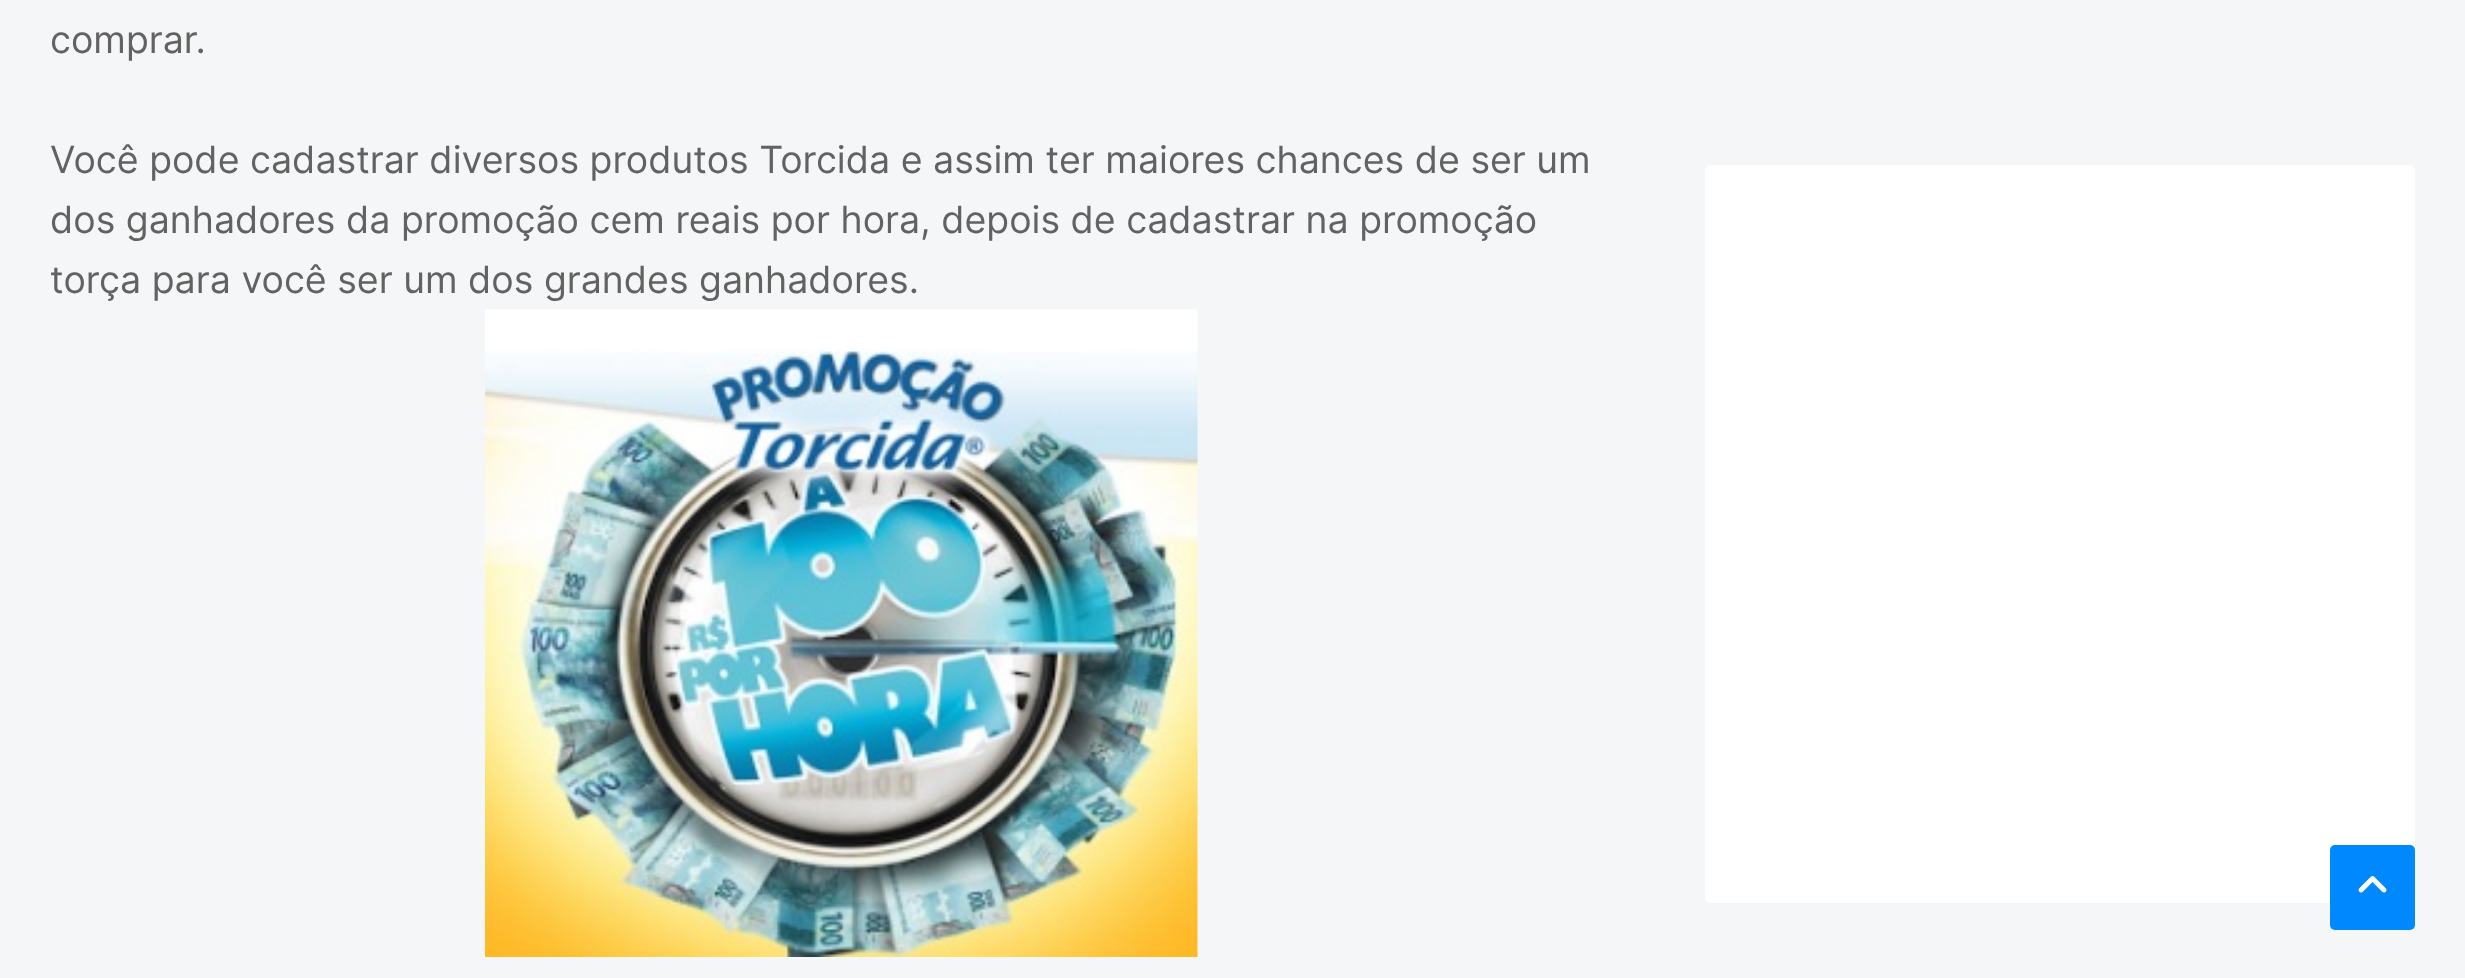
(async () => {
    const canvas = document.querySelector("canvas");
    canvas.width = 2465;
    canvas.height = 978;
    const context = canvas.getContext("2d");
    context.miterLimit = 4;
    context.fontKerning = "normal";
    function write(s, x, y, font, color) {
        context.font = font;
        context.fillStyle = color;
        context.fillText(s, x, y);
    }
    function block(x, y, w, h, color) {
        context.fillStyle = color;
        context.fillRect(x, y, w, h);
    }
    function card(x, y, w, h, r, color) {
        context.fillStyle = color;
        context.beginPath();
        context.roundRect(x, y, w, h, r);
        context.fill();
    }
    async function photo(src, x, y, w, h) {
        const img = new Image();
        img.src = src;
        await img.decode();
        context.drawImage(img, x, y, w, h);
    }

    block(0, 0, 2465, 978, "rgb(245, 246, 247)");
    write("comprar.", 50, 53, "37.5px Inter", "rgb(98, 98, 98)");
    write("Você pode cadastrar diversos produtos Torcida e assim ter maiores chances de ser um", 50, 173, "37.5px Inter", "rgb(98, 98, 98)");
    write("dos ganhadores da promoção cem reais por hora, depois de cadastrar na promoção", 50, 233, "37.5px Inter", "rgb(98, 98, 98)");
    write("torça para você ser um dos grandes ganhadores.", 50, 293, "37.5px Inter", "rgb(98, 98, 98)");
    await photo("media/1.png", 485, 309, 713, 648);
    card(1705, 165, 710, 738, 5, "rgb(255, 255, 255)");
    card(2330, 845, 85, 85, 5, "rgb(0, 136, 255)");
    await photo("media/2.png", 2358, 876, 29, 17);
})();
